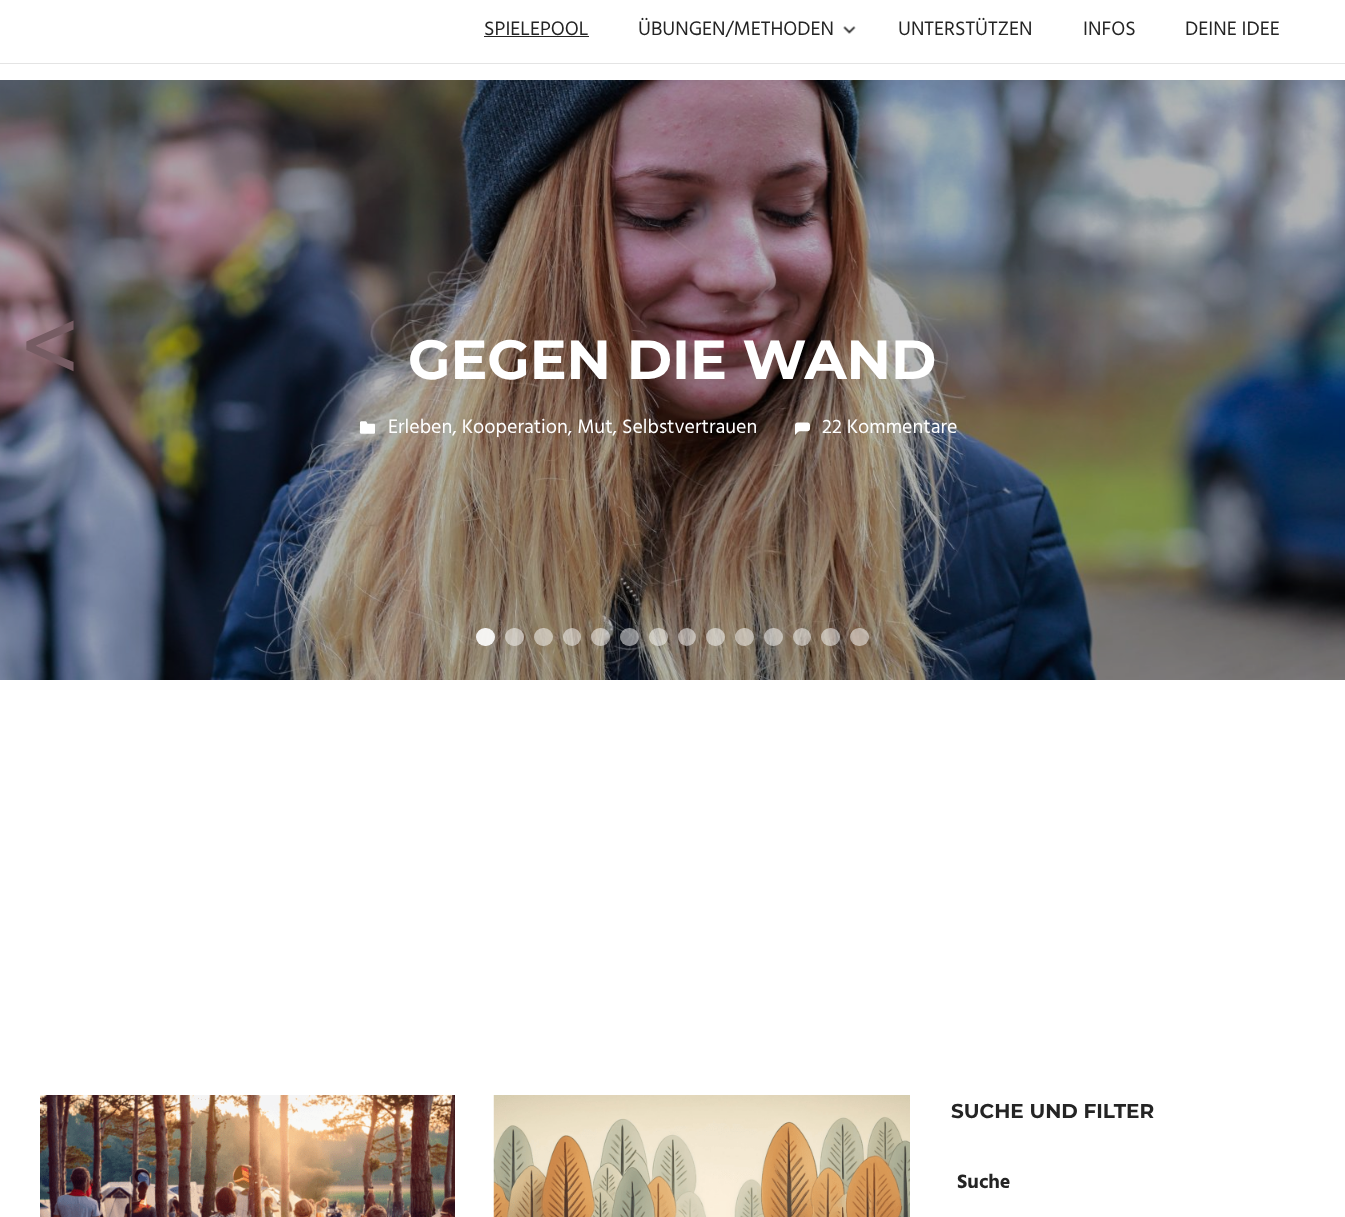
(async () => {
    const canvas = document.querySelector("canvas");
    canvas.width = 1345;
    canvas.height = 1217;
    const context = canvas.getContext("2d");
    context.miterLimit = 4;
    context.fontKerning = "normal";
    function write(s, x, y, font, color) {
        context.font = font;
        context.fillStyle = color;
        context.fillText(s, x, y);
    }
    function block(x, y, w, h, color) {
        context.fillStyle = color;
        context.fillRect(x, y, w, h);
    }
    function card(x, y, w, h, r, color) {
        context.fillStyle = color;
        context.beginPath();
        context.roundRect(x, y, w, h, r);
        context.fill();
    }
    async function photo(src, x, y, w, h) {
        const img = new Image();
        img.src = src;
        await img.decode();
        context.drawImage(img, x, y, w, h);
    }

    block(0, 0, 1345, 1217, "rgb(255, 255, 255)");
    block(0, 63, 1345, 1, "rgb(228, 228, 228)");
    write("SPIELEPOOL", 484, 35, "20px Hind", "rgb(36, 36, 36)");
    block(484, 36, 105, 1, "rgb(36, 36, 36)");
    write("ÜBUNGEN/METHODEN", 638, 35, "20px Hind", "rgb(36, 36, 36)");
    await photo("media/1.png", 843, 26, 13, 8);
    write("UNTERSTÜTZEN", 898, 35, "20px Hind", "rgb(36, 36, 36)");
    write("INFOS", 1083, 35, "20px Hind", "rgb(36, 36, 36)");
    write("DEINE IDEE", 1185, 35, "20px Hind", "rgb(36, 36, 36)");
    await photo("media/2.png", 0, 80, 1345, 600);
    write("<", 20, 384, "112px Hind", "rgb(118, 92, 99)");
    card(476, 628, 19, 18, 9, "rgba(255, 255, 255, 0.9)");
    card(505, 628, 19, 18, 9, "rgba(255, 255, 255, 0.5)");
    card(534, 628, 19, 18, 9, "rgba(255, 255, 255, 0.5)");
    context.beginPath();
    context.arc(572, 637, 9, 0, Math.PI * 2);
    context.fill();
    card(591, 628, 19, 18, 9, "rgba(255, 255, 255, 0.5)");
    card(620, 628, 19, 18, 9, "rgba(255, 255, 255, 0.5)");
    card(649, 628, 19, 18, 9, "rgba(255, 255, 255, 0.5)");
    context.beginPath();
    context.arc(687, 637, 9, 0, Math.PI * 2);
    context.fill();
    card(706, 628, 19, 18, 9, "rgba(255, 255, 255, 0.5)");
    card(735, 628, 19, 18, 9, "rgba(255, 255, 255, 0.5)");
    card(764, 628, 19, 18, 9, "rgba(255, 255, 255, 0.5)");
    context.beginPath();
    context.arc(802, 637, 9, 0, Math.PI * 2);
    context.fill();
    card(821, 628, 19, 18, 9, "rgba(255, 255, 255, 0.5)");
    card(850, 628, 19, 18, 9, "rgba(255, 255, 255, 0.5)");
    write("GEGEN DIE WAND", 408, 379, "bold 55px Montserrat", "rgb(255, 255, 255)");
    await photo("media/3.png", 360, 421, 15, 13);
    write("Erleben, Kooperation, Mut, Selbstvertrauen", 388, 433, "20px Hind", "rgb(255, 255, 255)");
    await photo("media/4.png", 795, 422, 15, 13);
    write("22 Kommentare", 822, 433, "20px Hind", "rgb(255, 255, 255)");
    await photo("media/5.png", 40, 1095, 415, 122);
    await photo("media/6.png", 493, 1095, 417, 122);
    write("SUCHE UND FILTER", 951, 1118, "bold 20px Montserrat", "rgb(36, 36, 36)");
    write("Suche", 957, 1188, "bold 20px Hind", "rgb(36, 36, 36)");
})();
